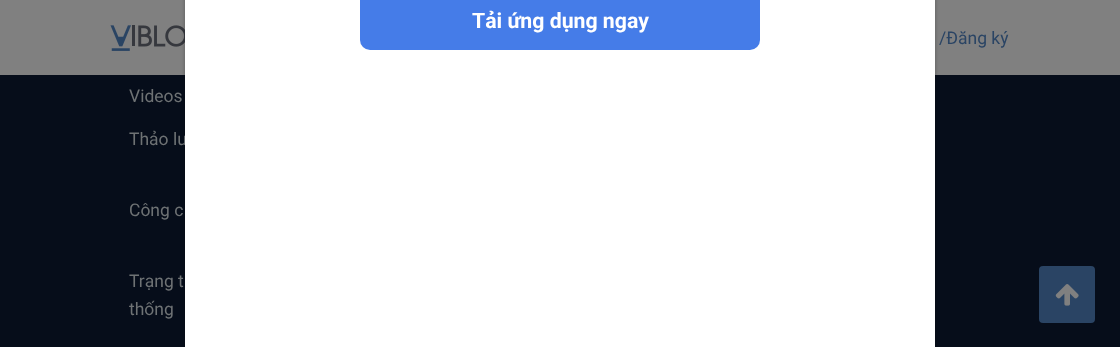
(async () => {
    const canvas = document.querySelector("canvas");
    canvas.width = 1120;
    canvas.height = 347;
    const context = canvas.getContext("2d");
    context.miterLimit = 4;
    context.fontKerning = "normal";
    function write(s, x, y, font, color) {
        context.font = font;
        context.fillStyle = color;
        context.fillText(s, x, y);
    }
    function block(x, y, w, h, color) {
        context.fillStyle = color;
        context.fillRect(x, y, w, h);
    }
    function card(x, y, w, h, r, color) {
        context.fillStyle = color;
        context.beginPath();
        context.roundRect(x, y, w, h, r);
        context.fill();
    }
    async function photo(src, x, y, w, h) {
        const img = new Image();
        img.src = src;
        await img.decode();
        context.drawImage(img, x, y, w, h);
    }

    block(0, 0, 1120, 347, "rgb(6, 13, 26)");
    block(0, 0, 1120, 75, "rgb(128, 128, 128)");
    await photo("media/1.png", 110, 25, 75, 26);
    context.fillStyle = "rgba(0, 0, 0, 0.3)";
    context.filter = "blur(2px)";
    context.beginPath();
    context.roundRect(185, -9, 750, 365, 2.5);
    context.fill();
    context.filter = "none";
    write("Thảo lu", 129, 145, "17.5px Roboto", "rgb(110, 114, 116)");
    block(185, 0, 750, 347, "rgb(255, 255, 255)");
    card(360, -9, 400, 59, 10, "rgb(69, 124, 232)");
    write("Tải ứng dụng ngay", 472, 28, "bold 21.25px Roboto", "rgb(255, 255, 255)");
    write("/Đăng ký", 939, 44, "17.5px Roboto", "rgb(42, 68, 100)");
    write("Videos", 129, 102, "17.5px Roboto", "rgb(110, 114, 116)");
    write("Công c", 129, 216, "17.5px Roboto", "rgb(110, 114, 116)");
    write("Trạng t", 129, 287, "17.5px Roboto", "rgb(110, 114, 116)");
    write("thống", 129, 315, "17.5px Roboto", "rgb(110, 114, 116)");
    card(1039, 266, 56, 57, 4, "rgb(42, 68, 100)");
    await photo("media/2.png", 1055, 284, 24, 22);
})();
